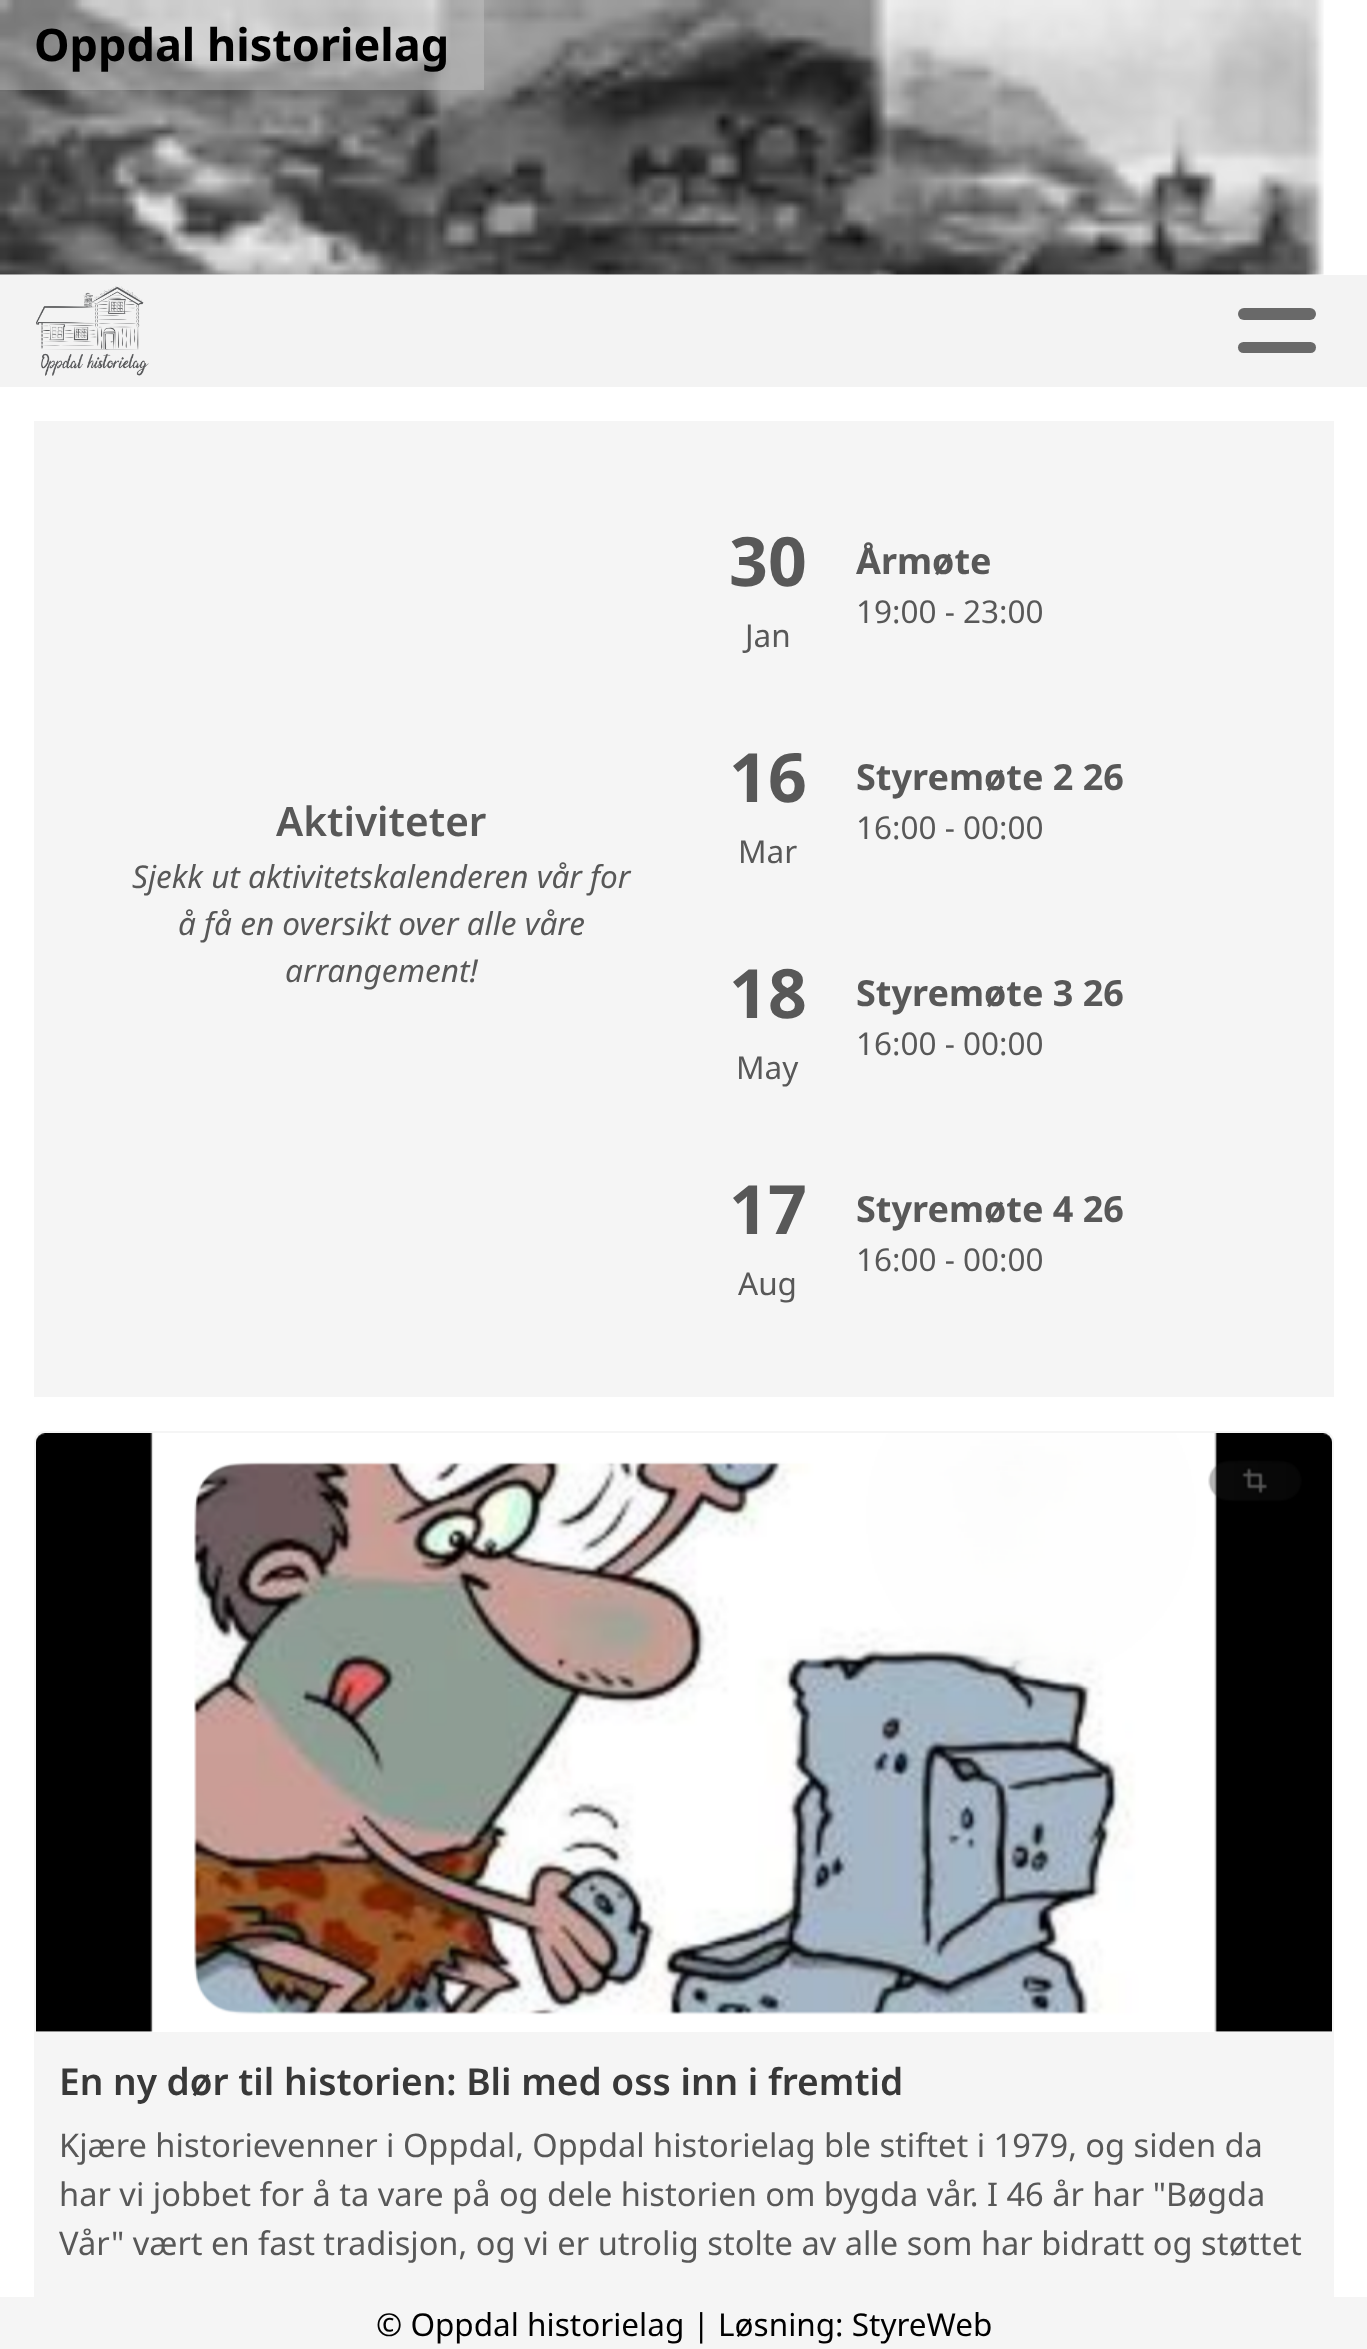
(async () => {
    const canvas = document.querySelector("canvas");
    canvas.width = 1367;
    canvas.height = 2349;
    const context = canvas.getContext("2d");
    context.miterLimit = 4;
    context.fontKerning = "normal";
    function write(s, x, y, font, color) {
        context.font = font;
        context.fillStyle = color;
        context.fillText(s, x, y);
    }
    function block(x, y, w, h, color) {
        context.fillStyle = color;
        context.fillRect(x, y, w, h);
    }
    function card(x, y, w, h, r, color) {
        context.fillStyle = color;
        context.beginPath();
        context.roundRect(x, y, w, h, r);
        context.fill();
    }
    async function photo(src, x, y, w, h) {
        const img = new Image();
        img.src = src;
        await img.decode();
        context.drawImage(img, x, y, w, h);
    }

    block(0, 0, 1367, 2349, "rgb(255, 255, 255)");
    await photo("media/1.png", 0, 0, 1324, 275);
    block(0, 0, 484, 90, "rgba(191, 191, 191, 0.5)");
    write("Oppdal historielag", 34, 61, "bold 45px Noto Sans", "rgb(0, 0, 0)");
    block(0, 275, 1367, 112, "rgb(243, 243, 243)");
    await photo("media/2.png", 36, 286, 113, 90);
    card(1238, 308, 78, 12, 6, "rgb(105, 105, 105)");
    card(1238, 342, 78, 11, 5.5, "rgb(105, 105, 105)");
    block(34, 421, 1300, 976, "rgb(245, 245, 245)");
    write("Aktiviteter", 276, 836, "600 40.5px Noto Sans", "rgb(88, 88, 88)");
    write("Sjekk ut aktivitetskalenderen vår for", 132, 888, "italic 31.5px Noto Sans", "rgb(88, 88, 88)");
    write("å få en oversikt over alle våre", 178, 935, "italic 31.5px Noto Sans", "rgb(88, 88, 88)");
    write("arrangement!", 285, 982, "italic 31.5px Noto Sans", "rgb(88, 88, 88)");
    write("30", 729, 586, "bold 68px Noto Sans", "rgb(88, 88, 88)");
    write("Jan", 745, 647, "31.5px Noto Sans", "rgb(88, 88, 88)");
    write("Årmøte", 856, 574, "bold 36px Noto Sans", "rgb(88, 88, 88)");
    write("19:00 - 23:00", 856, 623, "31.5px Noto Sans", "rgb(88, 88, 88)");
    write("16", 729, 802, "bold 68px Noto Sans", "rgb(88, 88, 88)");
    write("Mar", 738, 863, "31.5px Noto Sans", "rgb(88, 88, 88)");
    write("Styremøte 2 26", 856, 790, "bold 36px Noto Sans", "rgb(88, 88, 88)");
    write("16:00 - 00:00", 856, 839, "31.5px Noto Sans", "rgb(88, 88, 88)");
    write("18", 729, 1018, "bold 68px Noto Sans", "rgb(88, 88, 88)");
    write("May", 736, 1079, "31.5px Noto Sans", "rgb(88, 88, 88)");
    write("Styremøte 3 26", 856, 1006, "bold 36px Noto Sans", "rgb(88, 88, 88)");
    write("16:00 - 00:00", 856, 1055, "31.5px Noto Sans", "rgb(88, 88, 88)");
    write("17", 729, 1234, "bold 68px Noto Sans", "rgb(88, 88, 88)");
    write("Aug", 738, 1295, "31.5px Noto Sans", "rgb(88, 88, 88)");
    write("Styremøte 4 26", 856, 1222, "bold 36px Noto Sans", "rgb(88, 88, 88)");
    write("16:00 - 00:00", 856, 1271, "31.5px Noto Sans", "rgb(88, 88, 88)");
    context.beginPath();
    context.roundRect(35, 1432, 1298, 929, 10);
    context.strokeStyle = "rgb(245, 245, 245)";
    context.lineWidth = 2;
    context.stroke();
    await photo("media/3.png", 36, 1433, 1296, 599);
    block(36, 2032, 1296, 265, "rgb(245, 245, 245)");
    write("En ny dør til historien: Bli med oss inn i fremtid", 59, 2095, "600 37.1px Noto Sans", "rgb(56, 56, 56)");
    write("Kjære historievenner i Oppdal, Oppdal historielag ble stiftet i 1979, og siden da", 59, 2157, "32.6px Noto Sans", "rgb(88, 88, 88)");
    write("har vi jobbet for å ta vare på og dele historien om bygda vår. I 46 år har \"Bøgda", 59, 2206, "32.6px Noto Sans", "rgb(88, 88, 88)");
    write("Vår\" vært en fast tradisjon, og vi er utrolig stolte av alle som har bidratt og støttet", 59, 2255, "32.6px Noto Sans", "rgb(88, 88, 88)");
    block(0, 2297, 1367, 52, "rgb(245, 245, 245)");
    write("© Oppdal historielag | Løsning: StyreWeb", 376, 2336, "31.5px Noto Sans", "rgb(0, 0, 0)");
})();
